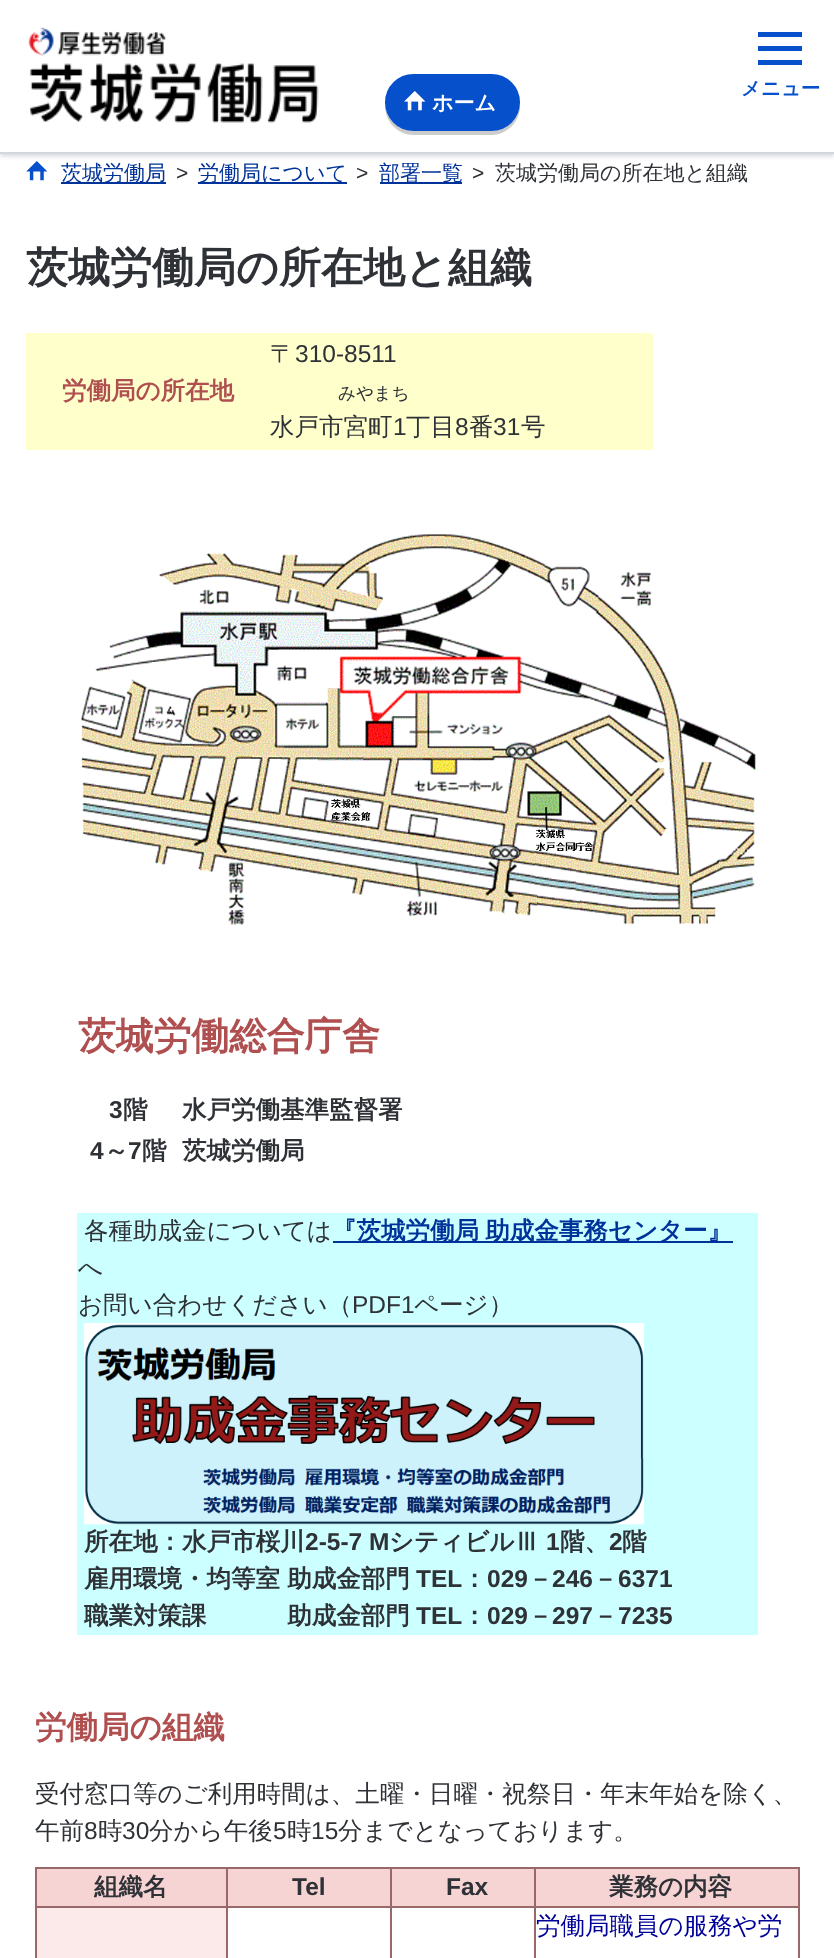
(async () => {
    const canvas = document.querySelector("canvas");
    canvas.width = 834;
    canvas.height = 1958;
    const context = canvas.getContext("2d");
    context.miterLimit = 4;
    context.fontKerning = "normal";
    function write(s, x, y, font, color) {
        context.font = font;
        context.fillStyle = color;
        context.fillText(s, x, y);
    }
    function block(x, y, w, h, color) {
        context.fillStyle = color;
        context.fillRect(x, y, w, h);
    }
    async function photo(src, x, y, w, h) {
        const img = new Image();
        img.src = src;
        await img.decode();
        context.drawImage(img, x, y, w, h);
    }

    block(0, 0, 834, 1958, "rgb(255, 255, 255)");
    await photo("media/3.png", 26, 161, 22, 20);
    context.save();
    context.beginPath();
    context.rect(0, 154, 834, 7);
    context.clip();
    context.fillStyle = "rgb(211, 214, 221)";
    context.filter = "blur(2.5px)";
    context.beginPath();
    context.rect(0, 2, 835, 154);
    context.fill();
    context.filter = "none";
    context.restore();
    block(0, 152, 834, 2, "rgb(211, 214, 221)");
    await photo("media/1.png", 28, 27, 291, 96);
    block(758, 46, 44, 5, "rgb(6, 80, 203)");
    block(758, 32, 44, 5, "rgb(6, 80, 203)");
    block(758, 60, 44, 5, "rgb(6, 80, 203)");
    write("メニュー", 741, 95, "bold 19.5px WenQuanYi Zen Hei", "rgb(6, 80, 203)");
    context.fillStyle = "rgb(204, 204, 204)";
    context.beginPath();
    context.moveTo(385, 104);
    context.lineTo(385, 106);
    context.bezierCurveTo(385, 122, 398, 135, 414, 135);
    context.lineTo(491, 135);
    context.bezierCurveTo(507, 135, 520, 122, 520, 106);
    context.lineTo(520, 102);
    context.bezierCurveTo(520, 118, 507, 131, 491, 131);
    context.lineTo(414, 131);
    context.bezierCurveTo(399, 131, 386, 119, 385, 104);
    context.closePath();
    context.fill();
    context.fillStyle = "rgb(6, 80, 203)";
    context.beginPath();
    context.roundRect(386, 75, 133, 55, 27.5);
    context.fill();
    context.strokeStyle = "rgb(6, 80, 203)";
    context.lineWidth = 2;
    context.stroke();
    await photo("media/2.png", 404, 91, 22, 20);
    write("ホーム", 432, 110, "bold 21px WenQuanYi Zen Hei", "rgb(255, 255, 255)");
    block(61, 182, 105, 2, "rgb(0, 51, 153)");
    write("茨城労働局", 61, 180, "500 21px WenQuanYi Zen Hei", "rgb(0, 51, 153)");
    write(">", 176, 180, "21px Liberation Sans", "rgb(46, 49, 54)");
    block(198, 182, 149, 2, "rgb(0, 51, 153)");
    write("労働局について", 198, 180, "500 21px WenQuanYi Zen Hei", "rgb(0, 51, 153)");
    write(">", 356, 180, "21px Liberation Sans", "rgb(46, 49, 54)");
    block(380, 182, 82, 2, "rgb(0, 51, 153)");
    write("部署一覧", 379, 180, "500 21px WenQuanYi Zen Hei", "rgb(0, 51, 153)");
    write(">", 472, 180, "21px Liberation Sans", "rgb(46, 49, 54)");
    write("茨城労働局の所在地と組織", 495, 180, "500 21px WenQuanYi Zen Hei", "rgb(46, 49, 54)");
    write("茨城労働局の所在地と組織", 26, 282, "bold 42px WenQuanYi Zen Hei", "rgb(46, 49, 54)");
    block(26, 333, 627, 117, "rgb(255, 255, 204)");
    write("労働局の所在地", 62, 399, "bold 24.5px WenQuanYi Zen Hei", "rgb(176, 79, 79)");
    write("〒", 270, 362, "500 24.5px WenQuanYi Zen Hei", "rgb(46, 49, 54)");
    write("310-8511", 295, 362, "24.5px Liberation Sans", "rgb(46, 49, 54)");
    write("みやまち", 338, 399, "500 17.5px WenQuanYi Zen Hei", "rgb(46, 49, 54)");
    write("水戸市宮町", 270, 435, "500 24.5px WenQuanYi Zen Hei", "rgb(46, 49, 54)");
    write("1", 393, 435, "24.5px Liberation Sans", "rgb(46, 49, 54)");
    write("丁目", 406, 435, "500 24.5px WenQuanYi Zen Hei", "rgb(46, 49, 54)");
    write("8", 455, 435, "24.5px Liberation Sans", "rgb(46, 49, 54)");
    write("番", 469, 435, "500 24.5px WenQuanYi Zen Hei", "rgb(46, 49, 54)");
    write("31", 493, 435, "24.5px Liberation Sans", "rgb(46, 49, 54)");
    write("号", 521, 435, "500 24.5px WenQuanYi Zen Hei", "rgb(46, 49, 54)");
    await photo("media/4.png", 81, 534, 675, 391);
    write("茨城労働総合庁舎", 78, 1049, "bold 37.75px WenQuanYi Zen Hei", "rgb(176, 79, 79)");
    write("3", 109, 1118, "bold 24.5px Liberation Sans", "rgb(46, 49, 54)");
    write("階", 123, 1118, "bold 24.5px WenQuanYi Zen Hei", "rgb(46, 49, 54)");
    write("水戸労働基準監督署", 182, 1118, "bold 24.5px WenQuanYi Zen Hei", "rgb(46, 49, 54)");
    write("4", 90, 1159, "bold 24.5px Liberation Sans", "rgb(46, 49, 54)");
    write("～", 104, 1159, "bold 24.5px WenQuanYi Zen Hei", "rgb(46, 49, 54)");
    write("7", 128, 1159, "bold 24.5px Liberation Sans", "rgb(46, 49, 54)");
    write("階", 142, 1159, "bold 24.5px WenQuanYi Zen Hei", "rgb(46, 49, 54)");
    write("茨城労働局", 182, 1159, "bold 24.5px WenQuanYi Zen Hei", "rgb(46, 49, 54)");
    block(77, 1213, 681, 422, "rgb(204, 255, 255)");
    write("各種助成金については", 84, 1239, "500 24.5px WenQuanYi Zen Hei", "rgb(46, 49, 54)");
    block(333, 1241, 400, 2, "rgb(0, 51, 153)");
    context.wordSpacing = "-1px";
    write("『茨城労働局 助成金事務センター』", 332, 1239, "bold 24.5px WenQuanYi Zen Hei", "rgb(0, 51, 153)");
    context.wordSpacing = "0px";
    write("へ", 78, 1276, "500 24.5px WenQuanYi Zen Hei", "rgb(46, 49, 54)");
    write("お問い合わせください（", 78, 1313, "500 24.5px WenQuanYi Zen Hei", "rgb(46, 49, 54)");
    write("PDF1", 352, 1313, "24.5px Liberation Sans", "rgb(46, 49, 54)");
    write("ページ）", 414, 1313, "500 24.5px WenQuanYi Zen Hei", "rgb(46, 49, 54)");
    await photo("media/5.png", 84, 1323, 560, 202);
    write("所在地：水戸市桜川", 84, 1550, "bold 24.5px WenQuanYi Zen Hei", "rgb(46, 49, 54)");
    write("2-5-7 M", 305, 1550, "bold 24.5px Liberation Sans", "rgb(46, 49, 54)");
    write("シティビルⅢ", 389, 1550, "bold 24.5px WenQuanYi Zen Hei", "rgb(46, 49, 54)");
    write("1", 546, 1550, "bold 24.5px Liberation Sans", "rgb(46, 49, 54)");
    write("階、", 560, 1550, "bold 24.5px WenQuanYi Zen Hei", "rgb(46, 49, 54)");
    write("2", 609, 1550, "bold 24.5px Liberation Sans", "rgb(46, 49, 54)");
    write("階", 622, 1550, "bold 24.5px WenQuanYi Zen Hei", "rgb(46, 49, 54)");
    write("雇用環境・均等室 助成金部門", 84, 1587, "bold 24.5px WenQuanYi Zen Hei", "rgb(46, 49, 54)");
    write("TEL", 416, 1587, "bold 24.5px Liberation Sans", "rgb(46, 49, 54)");
    write("：", 462, 1587, "bold 24.5px WenQuanYi Zen Hei", "rgb(46, 49, 54)");
    write("029", 487, 1587, "bold 24.5px Liberation Sans", "rgb(46, 49, 54)");
    write("－", 528, 1587, "bold 24.5px WenQuanYi Zen Hei", "rgb(46, 49, 54)");
    write("246", 552, 1587, "bold 24.5px Liberation Sans", "rgb(46, 49, 54)");
    write("－", 593, 1587, "bold 24.5px WenQuanYi Zen Hei", "rgb(46, 49, 54)");
    write("6371", 618, 1587, "bold 24.5px Liberation Sans", "rgb(46, 49, 54)");
    write("職業対策課 　　　助成金部門", 84, 1624, "bold 24.5px WenQuanYi Zen Hei", "rgb(46, 49, 54)");
    write("TEL", 416, 1624, "bold 24.5px Liberation Sans", "rgb(46, 49, 54)");
    write("：", 462, 1624, "bold 24.5px WenQuanYi Zen Hei", "rgb(46, 49, 54)");
    write("029", 487, 1624, "bold 24.5px Liberation Sans", "rgb(46, 49, 54)");
    write("－", 528, 1624, "bold 24.5px WenQuanYi Zen Hei", "rgb(46, 49, 54)");
    write("297", 552, 1624, "bold 24.5px Liberation Sans", "rgb(46, 49, 54)");
    write("－", 593, 1624, "bold 24.5px WenQuanYi Zen Hei", "rgb(46, 49, 54)");
    write("7235", 618, 1624, "bold 24.5px Liberation Sans", "rgb(46, 49, 54)");
    write("労働局の組織", 35, 1738, "bold 31.5px WenQuanYi Zen Hei", "rgb(176, 79, 79)");
    write("受付窓口等のご利用時間は、土曜・日曜・祝祭日・年末年始を除く、", 35, 1802, "500 24.5px WenQuanYi Zen Hei", "rgb(46, 49, 54)");
    write("午前", 35, 1839, "500 24.5px WenQuanYi Zen Hei", "rgb(46, 49, 54)");
    write("8", 84, 1839, "24.5px Liberation Sans", "rgb(46, 49, 54)");
    write("時", 98, 1839, "500 24.5px WenQuanYi Zen Hei", "rgb(46, 49, 54)");
    write("30", 122, 1839, "24.5px Liberation Sans", "rgb(46, 49, 54)");
    write("分から午後", 149, 1839, "500 24.5px WenQuanYi Zen Hei", "rgb(46, 49, 54)");
    write("5", 273, 1839, "24.5px Liberation Sans", "rgb(46, 49, 54)");
    write("時", 287, 1839, "500 24.5px WenQuanYi Zen Hei", "rgb(46, 49, 54)");
    write("15", 311, 1839, "24.5px Liberation Sans", "rgb(46, 49, 54)");
    write("分までとなっております。", 338, 1839, "500 24.5px WenQuanYi Zen Hei", "rgb(46, 49, 54)");
    block(35, 1867, 765, 91, "rgb(153, 105, 105)");
    block(37, 1869, 189, 37, "rgb(247, 212, 212)");
    write("組織名", 94, 1895, "bold 24.5px WenQuanYi Zen Hei", "rgb(46, 49, 54)");
    block(228, 1869, 162, 37, "rgb(247, 212, 212)");
    write("Tel", 292, 1895, "bold 24.5px Liberation Sans", "rgb(46, 49, 54)");
    block(392, 1869, 142, 37, "rgb(247, 212, 212)");
    write("Fax", 446, 1895, "bold 24.5px Liberation Sans", "rgb(46, 49, 54)");
    block(536, 1869, 262, 37, "rgb(247, 212, 212)");
    write("業務の内容", 609, 1895, "bold 24.5px WenQuanYi Zen Hei", "rgb(46, 49, 54)");
    block(37, 1908, 189, 50, "rgb(252, 234, 234)");
    block(228, 1908, 162, 50, "rgb(255, 255, 255)");
    block(392, 1908, 142, 50, "rgb(255, 255, 255)");
    block(536, 1908, 262, 50, "rgb(255, 255, 255)");
    write("労働局職員の服務や労", 536, 1934, "500 24.5px WenQuanYi Zen Hei", "rgb(0, 0, 153)");
})();
